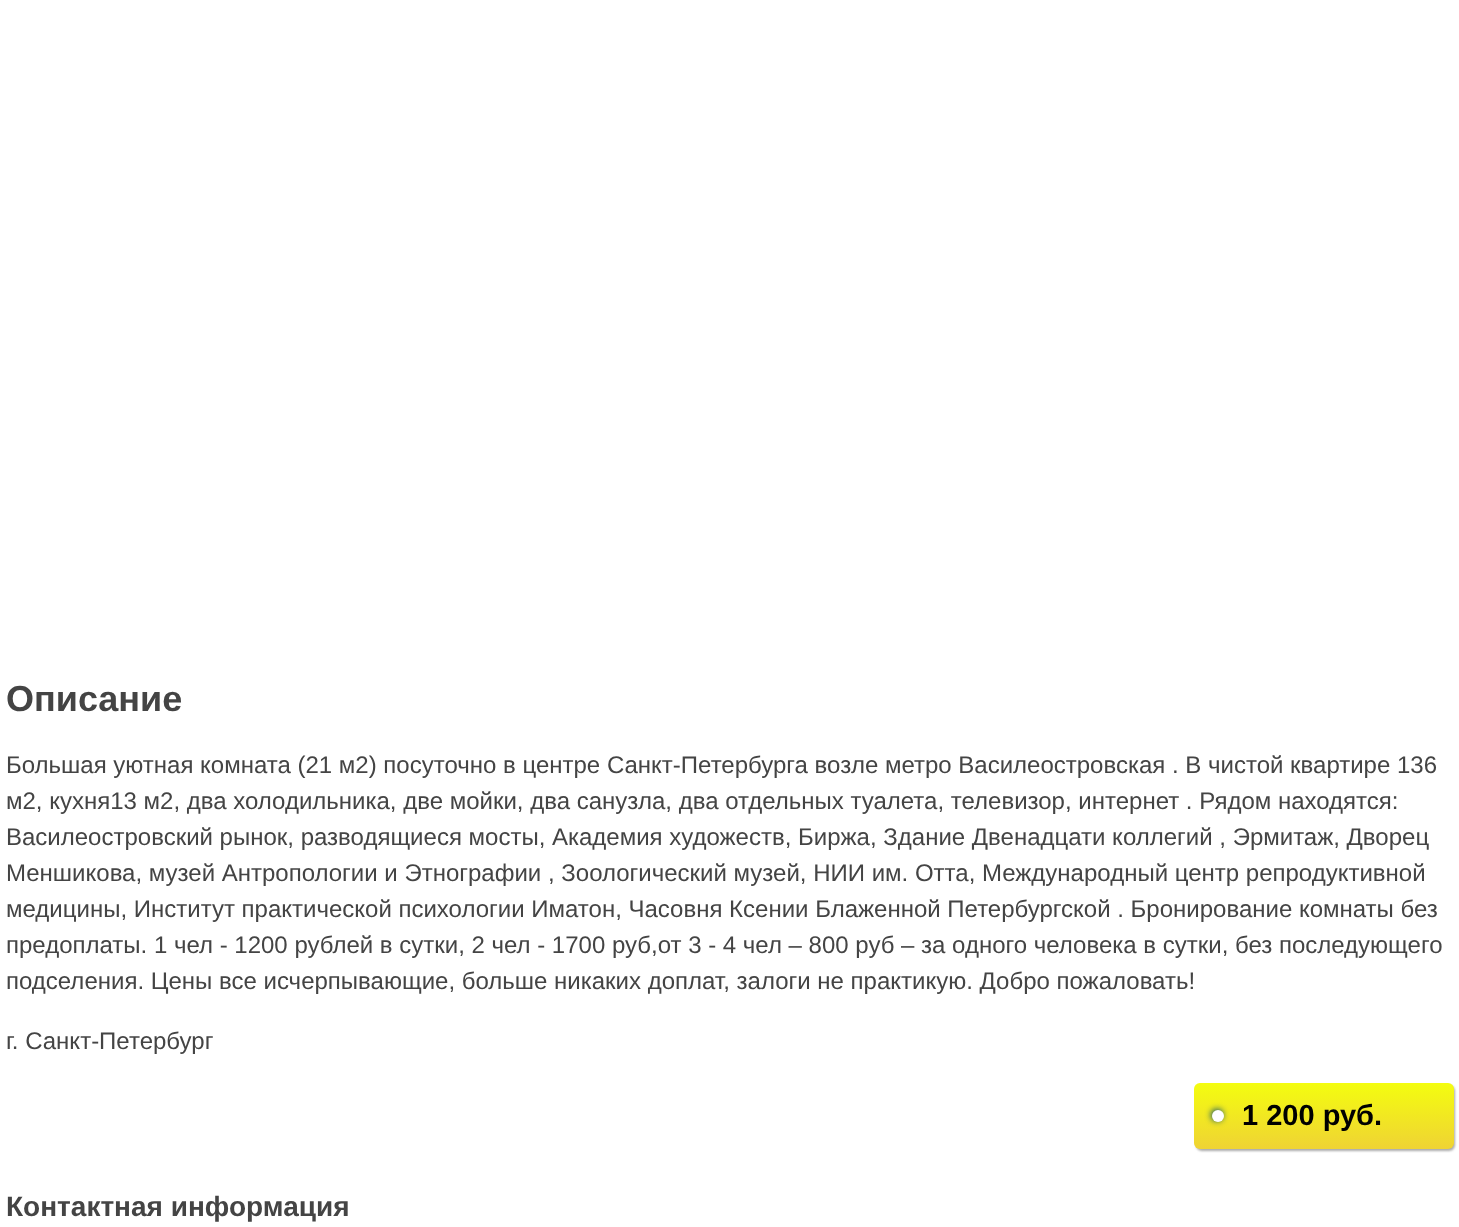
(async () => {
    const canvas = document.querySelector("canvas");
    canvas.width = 1459;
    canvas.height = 1227;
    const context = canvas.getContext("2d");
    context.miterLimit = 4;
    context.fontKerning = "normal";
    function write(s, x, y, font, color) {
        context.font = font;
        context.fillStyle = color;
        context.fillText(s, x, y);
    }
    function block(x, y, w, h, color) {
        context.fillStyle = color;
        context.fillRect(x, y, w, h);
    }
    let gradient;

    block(0, 0, 1459, 1227, "rgb(255, 255, 255)");
    write("Описание", 6, 711, "bold 36px Liberation Sans", "rgb(68, 68, 68)");
    write("Большая уютная комната (21 м2) посуточно в центре Санкт-Петербурга возле метро Василеостровская . В чистой квартире 136", 6, 773, "24px Liberation Sans", "rgb(68, 68, 68)");
    write("м2, кухня13 м2, два холодильника, две мойки, два санузла, два отдельных туалета, телевизор, интернет . Рядом находятся:", 6, 809, "24px Liberation Sans", "rgb(68, 68, 68)");
    write("Василеостровский рынок, разводящиеся мосты, Академия художеств, Биржа, Здание Двенадцати коллегий , Эрмитаж, Дворец", 6, 845, "24px Liberation Sans", "rgb(68, 68, 68)");
    write("Меншикова, музей Антропологии и Этнографии , Зоологический музей, НИИ им. Отта, Международный центр репродуктивной", 6, 881, "24px Liberation Sans", "rgb(68, 68, 68)");
    write("медицины, Институт практической психологии Иматон, Часовня Ксении Блаженной Петербургской . Бронирование комнаты без", 6, 917, "24px Liberation Sans", "rgb(68, 68, 68)");
    write("предоплаты. 1 чел - 1200 рублей в сутки, 2 чел - 1700 руб,от 3 - 4 чел – 800 руб – за одного человека в сутки, без последующего", 6, 953, "24px Liberation Sans", "rgb(68, 68, 68)");
    write("подселения. Цены все исчерпывающие, больше никаких доплат, залоги не практикую. Добро пожаловать!", 6, 989, "24px Liberation Sans", "rgb(68, 68, 68)");
    write("г. Санкт-Петербург", 6, 1049, "24px Liberation Sans", "rgb(68, 68, 68)");
    context.fillStyle = "rgb(170, 170, 170)";
    context.filter = "blur(1px)";
    context.beginPath();
    context.roundRect(1196, 1085, 259, 66, 6);
    context.fill();
    context.filter = "none";
    gradient = context.createLinearGradient(1194, 1083, 1194, 1149);
    gradient.addColorStop(0, "rgb(244, 253, 15)");
    gradient.addColorStop(1, "rgb(239, 211, 52)");
    context.fillStyle = gradient;
    context.beginPath();
    context.roundRect(1194, 1083, 260, 66, 6);
    context.fill();
    context.fillStyle = "rgb(0, 73, 119)";
    context.filter = "blur(3px)";
    context.beginPath();
    context.roundRect(1211, 1109, 12, 12, 6);
    context.fill();
    context.filter = "none";
    context.fillStyle = "rgb(255, 255, 255)";
    context.beginPath();
    context.arc(1218, 1116, 6, 0, Math.PI * 2);
    context.fill();
    write("1 200 руб.", 1242, 1125, "bold 29px Liberation Sans", "rgb(0, 0, 0)");
    write("Контактная информация", 6, 1216, "bold 28px Liberation Sans", "rgb(68, 68, 68)");
})();
